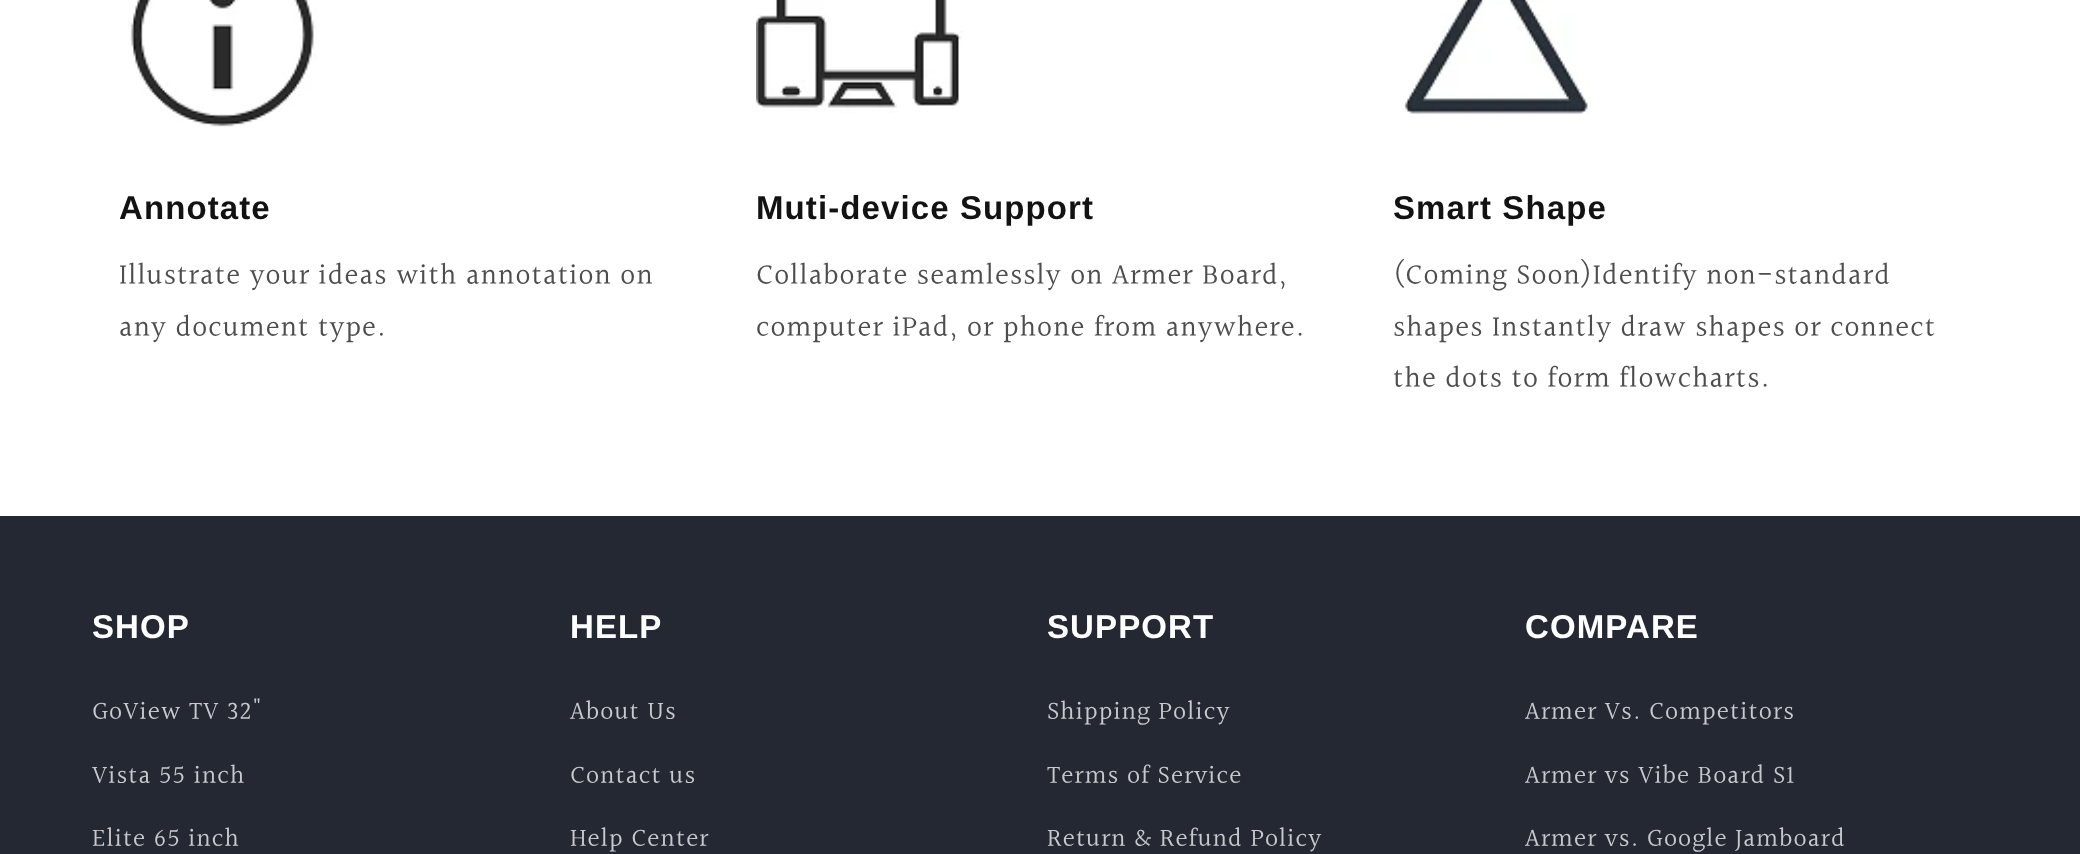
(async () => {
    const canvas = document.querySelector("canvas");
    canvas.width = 2080;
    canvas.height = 854;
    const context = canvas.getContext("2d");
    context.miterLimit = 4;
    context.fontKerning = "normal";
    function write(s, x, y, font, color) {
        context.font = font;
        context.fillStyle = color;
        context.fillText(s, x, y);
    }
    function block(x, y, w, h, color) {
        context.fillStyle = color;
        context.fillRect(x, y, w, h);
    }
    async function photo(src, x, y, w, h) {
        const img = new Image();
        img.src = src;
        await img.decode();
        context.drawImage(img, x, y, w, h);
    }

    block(0, 0, 2080, 854, "rgb(255, 255, 255)");
    await photo("media/1.png", 128, 0, 189, 127);
    context.letterSpacing = "1.1px";
    write("Annotate", 119, 219, "bold 33px Liberation Sans", "rgb(18, 18, 18)");
    write("Illustrate your ideas with annotation on", 119, 285, "29.4px Halant", "rgb(77, 77, 77)");
    write("any document type.", 119, 337, "29.4px Halant", "rgb(77, 77, 77)");
    await photo("media/2.png", 756, 0, 207, 113);
    write("Muti-device Support", 756, 219, "bold 33px Liberation Sans", "rgb(18, 18, 18)");
    write("Collaborate seamlessly on Armer Board,", 756, 285, "29.4px Halant", "rgb(77, 77, 77)");
    write("computer iPad, or phone from anywhere.", 756, 337, "29.4px Halant", "rgb(77, 77, 77)");
    await photo("media/3.png", 1402, 0, 189, 114);
    write("Smart Shape", 1393, 219, "bold 33px Liberation Sans", "rgb(18, 18, 18)");
    write("(Coming Soon)Identify non-standard", 1393, 285, "29.4px Halant", "rgb(77, 77, 77)");
    write("shapes Instantly draw shapes or connect", 1393, 337, "29.4px Halant", "rgb(77, 77, 77)");
    write("the dots to form flowcharts.", 1393, 388, "29.4px Halant", "rgb(77, 77, 77)");
    block(0, 516, 2080, 338, "rgb(36, 40, 51)");
    write("SHOP", 92, 638, "bold 33px Liberation Sans", "rgb(255, 255, 255)");
    write("GoView TV 32\"", 92, 720, "25.75px Halant", "rgb(200, 201, 204)");
    write("Vista 55 inch", 92, 784, "25.75px Halant", "rgb(200, 201, 204)");
    write("Elite 65 inch", 92, 847, "25.75px Halant", "rgb(200, 201, 204)");
    write("HELP", 570, 638, "bold 33px Liberation Sans", "rgb(255, 255, 255)");
    write("About Us", 570, 720, "25.75px Halant", "rgb(200, 201, 204)");
    write("Contact us", 570, 784, "25.75px Halant", "rgb(200, 201, 204)");
    write("Help Center", 570, 847, "25.75px Halant", "rgb(200, 201, 204)");
    write("SUPPORT", 1047, 638, "bold 33px Liberation Sans", "rgb(255, 255, 255)");
    write("Shipping Policy", 1047, 720, "25.75px Halant", "rgb(200, 201, 204)");
    write("Terms of Service", 1047, 784, "25.75px Halant", "rgb(200, 201, 204)");
    write("Return & Refund Policy", 1047, 847, "25.75px Halant", "rgb(200, 201, 204)");
    write("COMPARE", 1525, 638, "bold 33px Liberation Sans", "rgb(255, 255, 255)");
    write("Armer Vs. Competitors", 1525, 720, "25.75px Halant", "rgb(200, 201, 204)");
    write("Armer vs Vibe Board S1", 1525, 784, "25.75px Halant", "rgb(200, 201, 204)");
    write("Armer vs. Google Jamboard", 1525, 847, "25.75px Halant", "rgb(200, 201, 204)");
})();
